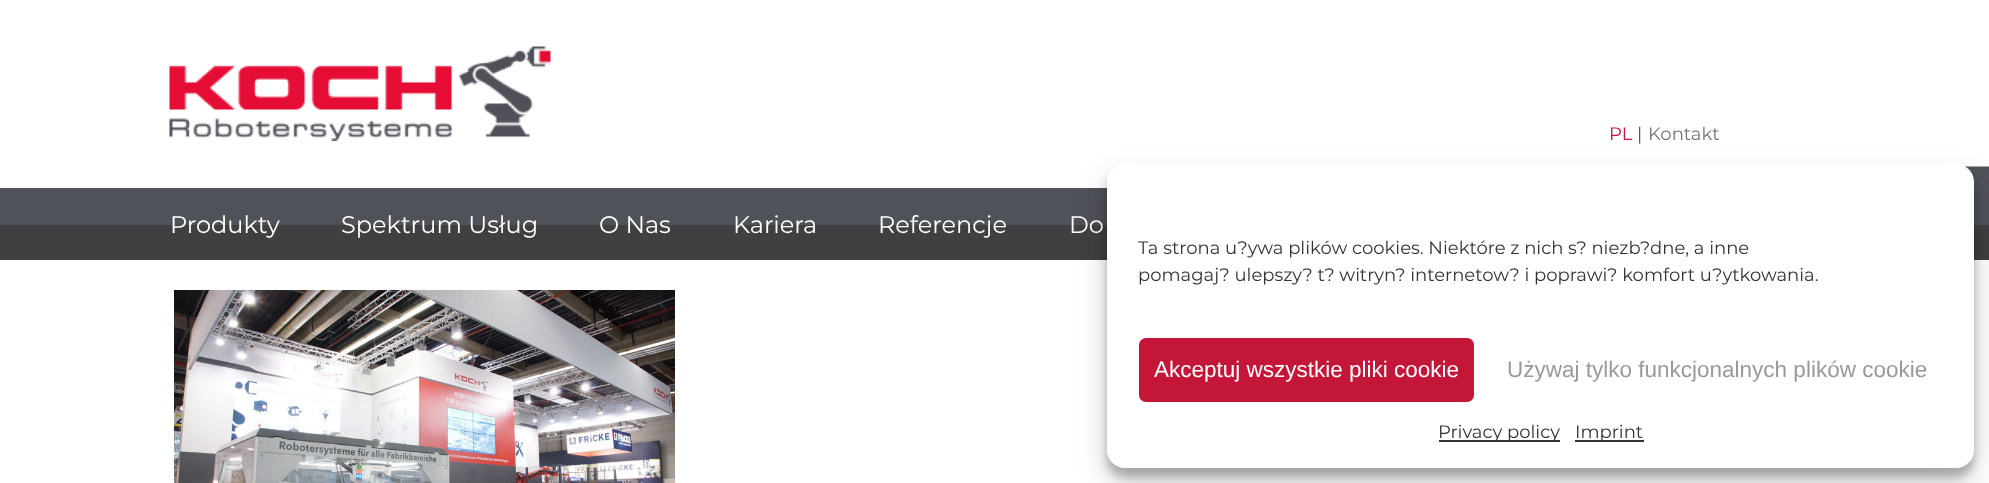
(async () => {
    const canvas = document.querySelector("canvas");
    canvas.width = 1989;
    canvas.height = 483;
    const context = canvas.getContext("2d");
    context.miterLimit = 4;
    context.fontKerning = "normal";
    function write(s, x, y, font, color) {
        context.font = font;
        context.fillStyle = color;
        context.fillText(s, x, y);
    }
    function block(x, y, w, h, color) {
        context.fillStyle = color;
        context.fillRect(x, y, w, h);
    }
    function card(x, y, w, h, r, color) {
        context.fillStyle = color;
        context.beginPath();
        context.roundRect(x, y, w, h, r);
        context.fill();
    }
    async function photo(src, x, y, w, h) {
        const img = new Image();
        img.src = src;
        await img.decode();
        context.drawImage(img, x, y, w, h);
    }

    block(0, 0, 1989, 483, "rgb(255, 255, 255)");
    write("PL", 1609, 140, "18px Montserrat", "rgb(196, 22, 56)");
    write("|", 1637, 140, "18px Montserrat", "rgb(80, 82, 89)");
    write("Kontakt", 1648, 140, "18px Montserrat", "rgb(116, 116, 116)");
    block(0, 188, 1989, 37, "rgb(80, 82, 89)");
    await photo("media/1.png", 1964, 166, 25, 22);
    await photo("media/2.png", 169, 46, 382, 95);
    block(0, 225, 1989, 35, "rgb(62, 64, 66)");
    write("Produkty", 170, 233, "24px Montserrat", "rgb(255, 255, 255)");
    write("Spektrum Usług", 341, 233, "24px Montserrat", "rgb(255, 255, 255)");
    write("O Nas", 599, 233, "24px Montserrat", "rgb(255, 255, 255)");
    write("Kariera", 733, 233, "24px Montserrat", "rgb(255, 255, 255)");
    write("Referencje", 878, 233, "24px Montserrat", "rgb(255, 255, 255)");
    write("Do", 1069, 233, "24px Montserrat", "rgb(255, 255, 255)");
    await photo("media/3.png", 174, 290, 501, 193);
    context.fillStyle = "rgba(0, 0, 0, 0.23)";
    context.filter = "blur(4.5px)";
    context.beginPath();
    context.roundRect(1107, 173, 867, 304, 18);
    context.fill();
    context.filter = "none";
    context.fillStyle = "rgba(0, 0, 0, 0.19)";
    context.filter = "blur(15px)";
    context.beginPath();
    context.roundRect(1107, 179, 867, 304, 18);
    context.fill();
    context.filter = "none";
    card(1107, 164, 867, 304, 18, "rgb(255, 255, 255)");
    write("Ta strona u?ywa plików cookies. Niektóre z nich s? niezb?dne, a inne", 1138, 254, "18px Montserrat", "rgb(51, 51, 51)");
    write("pomagaj? ulepszy? t? witryn? internetow? i poprawi? komfort u?ytkowania.", 1138, 281, "18px Montserrat", "rgb(51, 51, 51)");
    context.fillStyle = "rgb(196, 22, 56)";
    context.beginPath();
    context.roundRect(1138, 337, 337, 66, 8);
    context.fill();
    context.strokeStyle = "rgb(255, 255, 255)";
    context.lineWidth = 2;
    context.stroke();
    write("Akceptuj wszystkie pliki cookie", 1154, 377, "22.5px Liberation Sans", "rgb(255, 255, 255)");
    write("Używaj tylko funkcjonalnych plików cookie", 1507, 377, "22.5px Liberation Sans", "rgb(153, 153, 153)");
    block(1439, 440, 121, 2, "rgb(51, 51, 51)");
    write("Privacy policy", 1438, 438, "18px Montserrat", "rgb(51, 51, 51)");
    block(1575, 440, 69, 2, "rgb(51, 51, 51)");
    write("Imprint", 1575, 438, "18px Montserrat", "rgb(51, 51, 51)");
})();
